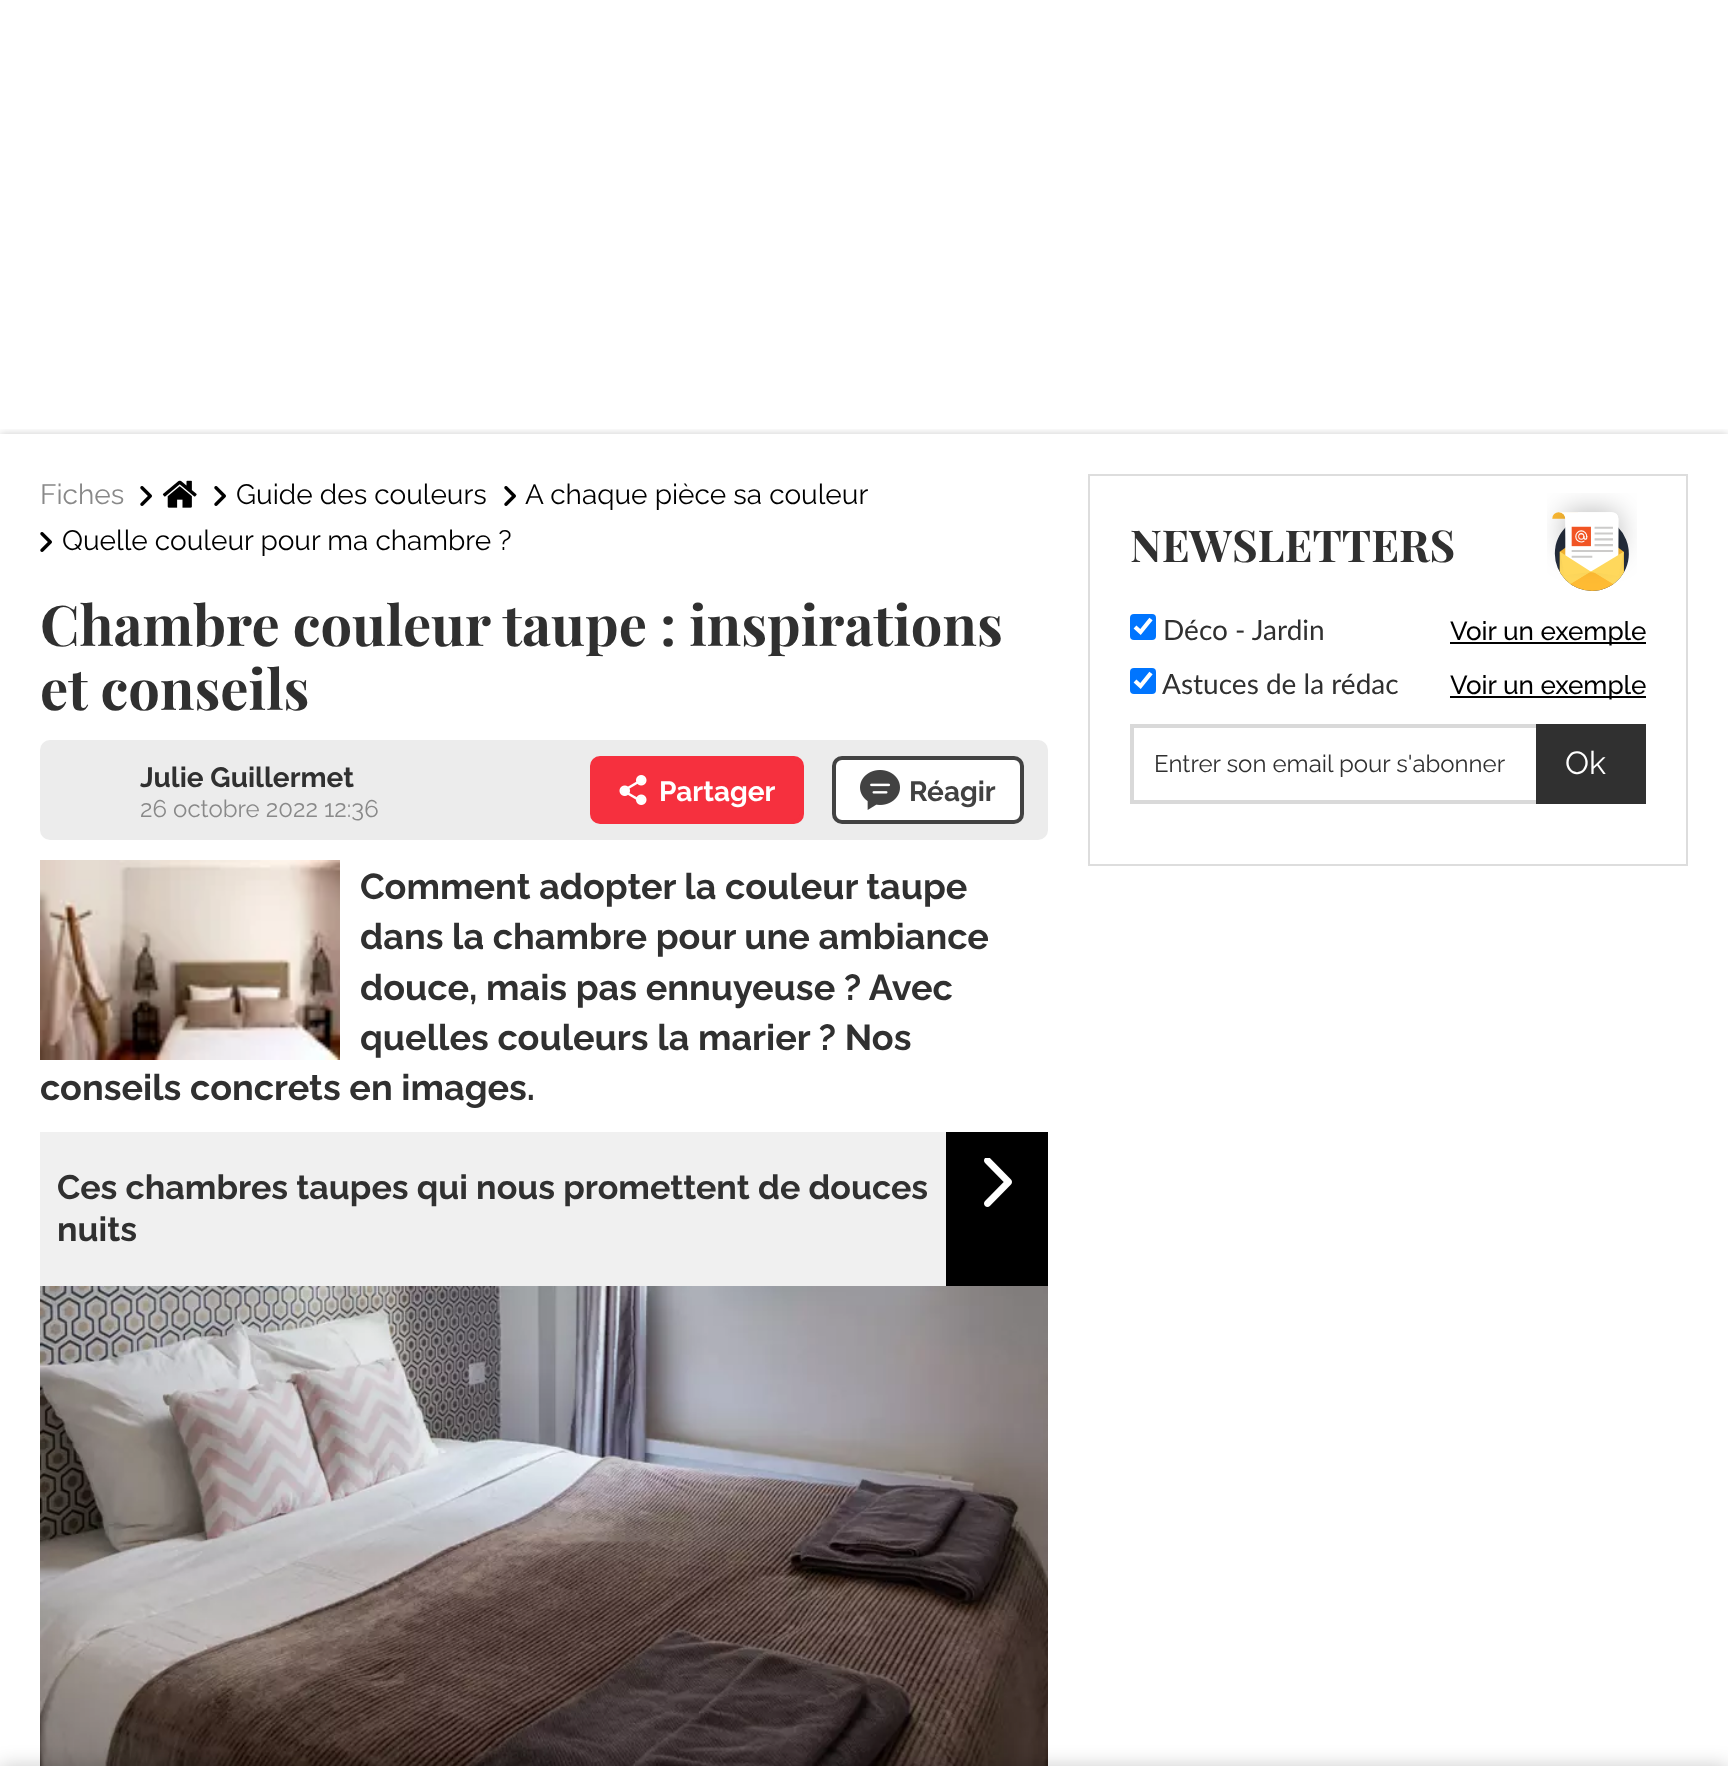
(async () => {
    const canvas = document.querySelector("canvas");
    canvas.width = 1728;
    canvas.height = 1766;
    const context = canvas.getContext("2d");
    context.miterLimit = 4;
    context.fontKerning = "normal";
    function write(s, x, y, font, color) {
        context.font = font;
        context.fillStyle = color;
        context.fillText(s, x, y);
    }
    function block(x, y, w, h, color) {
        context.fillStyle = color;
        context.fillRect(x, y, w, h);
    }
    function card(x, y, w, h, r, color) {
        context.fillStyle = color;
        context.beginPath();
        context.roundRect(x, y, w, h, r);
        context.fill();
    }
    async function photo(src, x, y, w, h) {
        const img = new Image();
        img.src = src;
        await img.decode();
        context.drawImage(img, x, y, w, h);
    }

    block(0, 0, 1728, 1766, "rgb(255, 255, 255)");
    context.save();
    context.beginPath();
    context.rect(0, 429, 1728, 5);
    context.clip();
    context.fillStyle = "rgba(0, 0, 0, 0.2)";
    context.filter = "blur(4px)";
    context.beginPath();
    context.rect(0, 434, 1728, 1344);
    context.fill();
    context.filter = "none";
    context.restore();
    write("Fiches", 40, 504, "28px Raleway", "rgb(137, 137, 137)");
    await photo("media/1.png", 140, 486, 12, 20);
    await photo("media/2.png", 162, 480, 35, 28);
    await photo("media/1.png", 214, 486, 12, 20);
    write("Guide des couleurs", 236, 504, "28px Raleway", "rgb(0, 0, 0)");
    await photo("media/1.png", 504, 486, 12, 20);
    write("A chaque pièce sa couleur", 525, 504, "28px Raleway", "rgb(0, 0, 0)");
    await photo("media/1.png", 40, 532, 12, 20);
    write("Quelle couleur pour ma chambre ?", 62, 550, "28px Raleway", "rgb(0, 0, 0)");
    write("Chambre couleur taupe : inspirations", 40, 646, "bold 56px Playfair Display", "rgb(48, 48, 48)");
    write("et conseils", 40, 710, "bold 56px Playfair Display", "rgb(48, 48, 48)");
    card(40, 740, 1008, 100, 10, "rgb(236, 236, 236)");
    write("Julie Guillermet", 140, 787, "bold 28px Raleway", "rgb(48, 48, 48)");
    write("26 octobre 2022 12:36", 140, 817, "24px Raleway", "rgb(137, 137, 137)");
    context.fillStyle = "rgb(246, 48, 62)";
    context.beginPath();
    context.roundRect(592, 758, 210, 64, 8);
    context.fill();
    context.strokeStyle = "rgb(246, 48, 62)";
    context.lineWidth = 4;
    context.stroke();
    await photo("media/3.png", 619, 775, 28, 30);
    write("Partager", 659, 801, "bold 28px Raleway", "rgb(255, 255, 255)");
    context.beginPath();
    context.roundRect(834, 758, 188, 64, 8);
    context.fill();
    context.strokeStyle = "rgb(66, 66, 66)";
    context.stroke();
    await photo("media/4.png", 860, 770, 40, 40);
    write("Réagir", 909, 801, "bold 28px Raleway", "rgb(66, 66, 66)");
    await photo("media/5.png", 40, 860, 300, 200);
    write("Comment adopter la couleur taupe", 360, 899, "bold 36px Raleway", "rgb(48, 48, 48)");
    write("dans la chambre pour une ambiance", 360, 949, "bold 36px Raleway", "rgb(48, 48, 48)");
    write("douce, mais pas ennuyeuse ? Avec", 360, 1000, "bold 36px Raleway", "rgb(48, 48, 48)");
    write("quelles couleurs la marier ? Nos", 360, 1050, "bold 36px Raleway", "rgb(48, 48, 48)");
    write("conseils concrets en images.", 40, 1100, "bold 36px Raleway", "rgb(48, 48, 48)");
    block(40, 1132, 906, 154, "rgb(240, 240, 240)");
    write("Ces chambres taupes qui nous promettent de douces", 57, 1199, "bold 34px Raleway", "rgb(48, 48, 48)");
    write("nuits", 57, 1241, "bold 34px Raleway", "rgb(48, 48, 48)");
    block(946, 1132, 102, 154, "rgb(0, 0, 0)");
    await photo("media/6.png", 984, 1158, 28, 49);
    await photo("media/7.png", 40, 1286, 1008, 480);
    context.fillStyle = "rgba(0, 0, 0, 0.2)";
    context.filter = "blur(10px)";
    context.beginPath();
    context.rect(0, 1766, 1728, 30);
    context.fill();
    context.filter = "none";
    context.strokeStyle = "rgb(221, 221, 221)";
    context.lineWidth = 2;
    context.strokeRect(1089, 475, 598, 390);
    write("NEWSLETTERS", 1130, 562, "bold 44px Playfair Display", "rgb(48, 48, 48)");
    await photo("media/8.png", 1547, 493, 90, 98);
    card(1130, 614, 26, 26, 4, "rgb(0, 117, 255)");
    context.beginPath();
    context.moveTo(1135, 627);
    context.lineTo(1140.5, 632);
    context.lineTo(1151, 619);
    context.strokeStyle = "rgb(255, 255, 255)";
    context.lineWidth = 4.2;
    context.stroke();
    write("Déco - Jardin", 1163, 640, "28px Lato", "rgb(48, 48, 48)");
    block(1450, 642, 196, 2, "rgb(0, 0, 0)");
    write("Voir un exemple", 1450, 640, "500 26px Raleway", "rgb(0, 0, 0)");
    card(1130, 668, 26, 26, 4, "rgb(0, 117, 255)");
    context.beginPath();
    context.moveTo(1135, 681);
    context.lineTo(1140.5, 686);
    context.lineTo(1151, 673);
    context.stroke();
    write("Astuces de la rédac", 1162, 694, "28px Lato", "rgb(48, 48, 48)");
    block(1450, 696, 196, 2, "rgb(0, 0, 0)");
    write("Voir un exemple", 1450, 694, "500 26px Raleway", "rgb(0, 0, 0)");
    context.strokeStyle = "rgb(217, 217, 217)";
    context.lineWidth = 4;
    context.strokeRect(1132, 726, 512, 76);
    write("Entrer son email pour s'abonner", 1154, 772, "24px Raleway", "rgb(48, 48, 48)");
    block(1536, 724, 110, 80, "rgb(48, 48, 48)");
    write("Ok", 1565, 774, "32px Raleway", "rgb(255, 255, 255)");
})();
